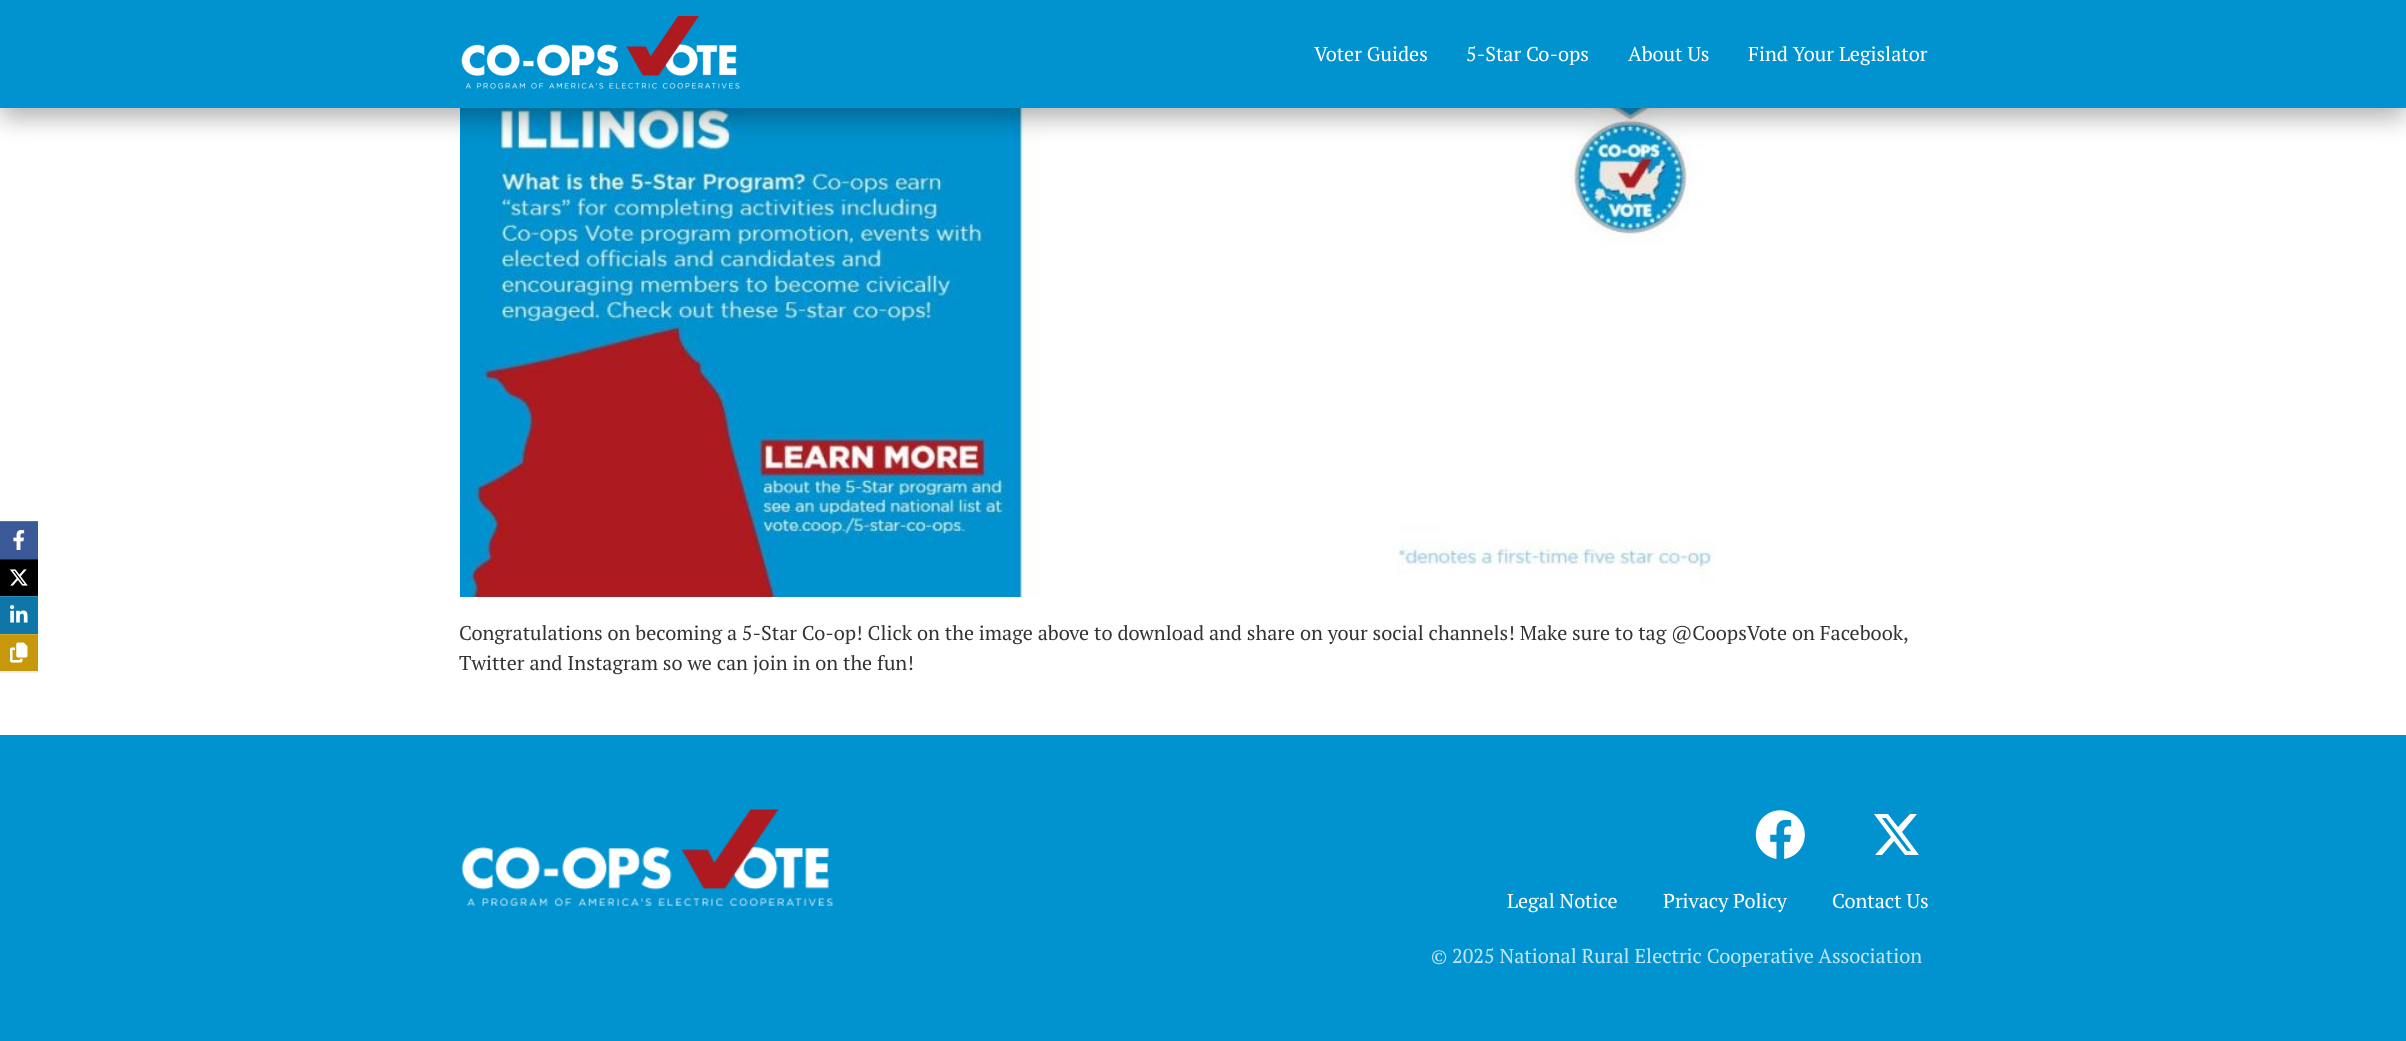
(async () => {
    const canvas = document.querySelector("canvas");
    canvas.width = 2406;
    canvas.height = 1041;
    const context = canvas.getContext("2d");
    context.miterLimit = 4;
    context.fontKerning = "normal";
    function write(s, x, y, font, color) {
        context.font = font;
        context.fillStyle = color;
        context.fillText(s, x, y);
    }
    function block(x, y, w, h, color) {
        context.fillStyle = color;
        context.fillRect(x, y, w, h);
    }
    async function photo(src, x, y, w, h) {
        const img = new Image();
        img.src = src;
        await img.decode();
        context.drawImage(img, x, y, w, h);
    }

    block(0, 0, 2406, 1041, "rgb(255, 255, 255)");
    await photo("media/6.png", 460, 108, 1255, 489);
    context.fillStyle = "rgba(0, 0, 0, 0.3)";
    context.filter = "blur(12.5px)";
    context.beginPath();
    context.rect(0, 10, 2406, 108);
    context.fill();
    context.filter = "none";
    block(0, 0, 2406, 108, "rgb(0, 147, 208)");
    await photo("media/1.png", 461, 16, 279, 73);
    write("Voter Guides", 1314, 61, "20px PT Serif", "rgb(255, 255, 255)");
    write("5-Star Co-ops", 1466, 61, "20px PT Serif", "rgb(255, 255, 255)");
    write("About Us", 1628, 61, "20px PT Serif", "rgb(255, 255, 255)");
    write("Find Your Legislator", 1748, 61, "20px PT Serif", "rgb(255, 255, 255)");
    block(0, 522, 38, 37, "rgb(59, 89, 152)");
    block(0, 521, 38, 1, "rgb(88, 114, 167)");
    await photo("media/2.png", 13, 530, 12, 20);
    block(0, 560, 38, 36, "rgb(0, 0, 0)");
    block(0, 559, 38, 1, "rgb(38, 38, 38)");
    await photo("media/3.png", 10, 569, 18, 17);
    block(0, 597, 38, 37, "rgb(14, 118, 168)");
    block(0, 596, 38, 1, "rgb(50, 139, 181)");
    await photo("media/4.png", 10, 605, 18, 18);
    context.fillStyle = "rgba(0, 0, 0, 0.07)";
    context.filter = "blur(0.5px)";
    context.beginPath();
    context.rect(0, 635, 38, 38);
    context.fill();
    context.filter = "none";
    block(0, 635, 38, 36, "rgb(199, 152, 10)");
    block(0, 634, 38, 1, "rgb(207, 167, 47)");
    await photo("media/5.png", 10, 642, 18, 21);
    write("Congratulations on becoming a 5-Star Co-op! Click on the image above to download and share on your social channels! Make sure to tag @CoopsVote on Facebook,", 459, 640, "20px PT Serif", "rgb(51, 51, 51)");
    write("Twitter and Instagram so we can join in on the fun!", 459, 670, "20px PT Serif", "rgb(51, 51, 51)");
    block(0, 735, 2406, 306, "rgb(0, 147, 208)");
    await photo("media/7.png", 461, 809, 372, 98);
    await photo("media/8.png", 1755, 810, 50, 49);
    context.fillStyle = "rgb(255, 255, 255)";
    context.beginPath();
    context.moveTo(1910, 814);
    context.lineTo(1917, 814);
    context.lineTo(1902, 832);
    context.lineTo(1919, 855);
    context.lineTo(1905, 855);
    context.lineTo(1894, 841);
    context.lineTo(1882, 855);
    context.lineTo(1875, 855);
    context.lineTo(1891, 837);
    context.lineTo(1874, 814);
    context.lineTo(1888, 814);
    context.lineTo(1898, 827);
    context.closePath();
    context.moveTo(1907, 851);
    context.lineTo(1911, 851);
    context.lineTo(1886, 818);
    context.lineTo(1882, 818);
    context.closePath();
    context.fill();
    write("Legal Notice", 1507, 908, "20px PT Serif", "rgb(255, 255, 255)");
    write("Privacy Policy", 1663, 908, "20px PT Serif", "rgb(255, 255, 255)");
    write("Contact Us", 1832, 908, "20px PT Serif", "rgb(255, 255, 255)");
    write("© 2025 National Rural Electric Cooperative Association", 1431, 963, "20px PT Serif", "rgb(191, 228, 243)");
})();
